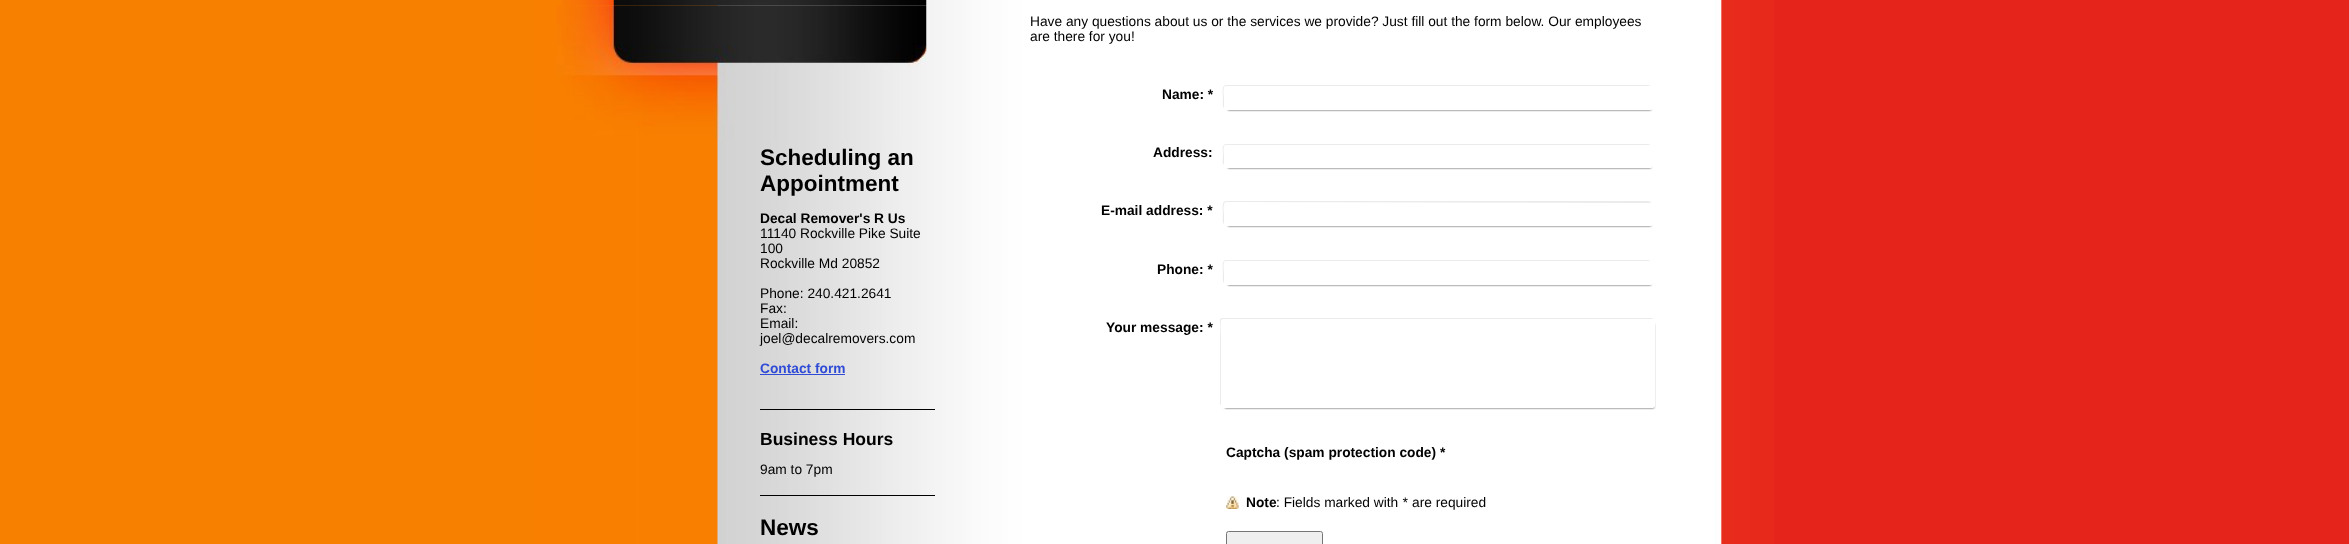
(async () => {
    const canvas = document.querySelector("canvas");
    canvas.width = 2349;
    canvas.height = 544;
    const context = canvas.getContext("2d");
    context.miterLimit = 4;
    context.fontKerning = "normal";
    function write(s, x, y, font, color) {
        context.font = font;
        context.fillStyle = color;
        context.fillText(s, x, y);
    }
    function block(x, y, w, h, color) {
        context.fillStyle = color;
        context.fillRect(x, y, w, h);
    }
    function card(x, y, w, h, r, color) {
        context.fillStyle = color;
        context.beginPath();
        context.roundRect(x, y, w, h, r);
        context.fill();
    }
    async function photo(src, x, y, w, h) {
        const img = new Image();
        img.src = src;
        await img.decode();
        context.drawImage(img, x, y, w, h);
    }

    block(0, 0, 2349, 544, "rgb(229, 36, 27)");
    await photo("media/1.png", 0, 0, 1774, 544);
    await photo("media/2.png", 717, 0, 1007, 544);
    await photo("media/3.png", 561, 0, 366, 6);
    await photo("media/4.png", 556, 5, 371, 134);
    write("Scheduling an", 760, 165, "bold 22.5px Liberation Sans", "rgb(0, 0, 0)");
    write("Appointment", 760, 191, "bold 22.5px Liberation Sans", "rgb(0, 0, 0)");
    write("Decal Remover's R Us", 760, 223, "bold 13.75px Liberation Sans", "rgb(0, 0, 0)");
    write("11140 Rockville Pike Suite", 760, 238, "13.75px Liberation Sans", "rgb(0, 0, 0)");
    write("100", 760, 253, "13.75px Liberation Sans", "rgb(0, 0, 0)");
    write("Rockville Md 20852", 760, 268, "13.75px Liberation Sans", "rgb(0, 0, 0)");
    write("Phone: 240.421.2641", 760, 298, "13.75px Liberation Sans", "rgb(0, 0, 0)");
    write("Fax:", 760, 313, "13.75px Liberation Sans", "rgb(0, 0, 0)");
    write("Email:", 760, 328, "13.75px Liberation Sans", "rgb(0, 0, 0)");
    write("joel@decalremovers.com", 760, 343, "13.75px Liberation Sans", "rgb(0, 0, 0)");
    write("Contact form", 760, 373, "bold 13.75px Liberation Sans", "rgb(48, 76, 215)");
    block(760, 374, 85, 1, "rgb(48, 76, 215)");
    block(760, 409, 175, 1, "rgb(0, 0, 0)");
    write("Business Hours", 760, 445, "bold 17.5px Liberation Sans", "rgb(0, 0, 0)");
    write("9am to 7pm", 760, 474, "13.75px Liberation Sans", "rgb(0, 0, 0)");
    block(760, 495, 175, 1, "rgb(0, 0, 0)");
    write("News", 760, 535, "bold 22.5px Liberation Sans", "rgb(0, 0, 0)");
    write("Have any questions about us or the services we provide? Just fill out the form below. Our employees", 1030, 26, "13.75px Liberation Sans", "rgb(0, 0, 0)");
    write("are there for you!", 1030, 41, "13.75px Liberation Sans", "rgb(0, 0, 0)");
    context.fillStyle = "rgb(235, 235, 235)";
    context.beginPath();
    context.moveTo(1226, 85);
    context.bezierCurveTo(1221, 85, 1223, 95, 1223, 97);
    context.bezierCurveTo(1223, 99, 1222, 107, 1224, 108);
    context.lineTo(1224, 98);
    context.bezierCurveTo(1224, 96, 1222, 86, 1226, 86);
    context.lineTo(1651, 86);
    context.bezierCurveTo(1650, 86, 1649, 85, 1648, 85);
    context.closePath();
    context.fill();
    context.fillStyle = "rgba(0, 0, 0, 0.8)";
    context.filter = "blur(1px)";
    context.beginPath();
    context.rect(1228, 91, 423, 19);
    context.fill();
    context.filter = "none";
    card(1224, 86, 429, 24, 2.5, "rgb(255, 255, 255)");
    write("Name: *", 1162, 99, "bold 13.75px Liberation Sans", "rgb(0, 0, 0)");
    context.fillStyle = "rgb(235, 235, 235)";
    context.beginPath();
    context.moveTo(1226, 144);
    context.bezierCurveTo(1221, 144, 1223, 153, 1223, 155);
    context.bezierCurveTo(1223, 157, 1222, 164, 1224, 165);
    context.lineTo(1224, 156);
    context.bezierCurveTo(1224, 154, 1222, 145, 1226, 145);
    context.lineTo(1651, 145);
    context.lineTo(1648, 144);
    context.closePath();
    context.fill();
    context.fillStyle = "rgba(0, 0, 0, 0.8)";
    context.filter = "blur(1px)";
    context.beginPath();
    context.rect(1228, 150, 423, 18);
    context.fill();
    context.filter = "none";
    card(1224, 145, 429, 23, 2.5, "rgb(255, 255, 255)");
    write("Address:", 1153, 157, "bold 13.75px Liberation Sans", "rgb(0, 0, 0)");
    context.fillStyle = "rgb(235, 235, 235)";
    context.beginPath();
    context.moveTo(1226, 201);
    context.bezierCurveTo(1221, 201, 1223, 211, 1223, 213);
    context.bezierCurveTo(1223, 215, 1222, 223, 1224, 224);
    context.lineTo(1224, 214);
    context.bezierCurveTo(1224, 212, 1222, 203, 1226, 202);
    context.lineTo(1651, 203);
    context.bezierCurveTo(1651, 202, 1650, 201, 1648, 201);
    context.closePath();
    context.fill();
    context.fillStyle = "rgba(0, 0, 0, 0.8)";
    context.filter = "blur(1px)";
    context.beginPath();
    context.rect(1228, 208, 423, 18);
    context.fill();
    context.filter = "none";
    card(1224, 203, 429, 23, 2.5, "rgb(255, 255, 255)");
    write("E-mail address: *", 1101, 215, "bold 13.75px Liberation Sans", "rgb(0, 0, 0)");
    context.fillStyle = "rgb(235, 235, 235)";
    context.beginPath();
    context.moveTo(1226, 260);
    context.bezierCurveTo(1221, 260, 1223, 270, 1223, 272);
    context.bezierCurveTo(1223, 274, 1222, 282, 1224, 283);
    context.lineTo(1224, 273);
    context.bezierCurveTo(1224, 271, 1222, 261, 1226, 261);
    context.lineTo(1651, 261);
    context.bezierCurveTo(1650, 261, 1649, 260, 1648, 260);
    context.closePath();
    context.fill();
    context.fillStyle = "rgba(0, 0, 0, 0.8)";
    context.filter = "blur(1px)";
    context.beginPath();
    context.rect(1228, 266, 423, 19);
    context.fill();
    context.filter = "none";
    card(1224, 261, 429, 24, 2.5, "rgb(255, 255, 255)");
    write("Phone: *", 1157, 274, "bold 13.75px Liberation Sans", "rgb(0, 0, 0)");
    context.fillStyle = "rgb(235, 235, 235)";
    context.beginPath();
    context.moveTo(1222, 318);
    context.bezierCurveTo(1221, 318, 1220, 319, 1220, 320);
    context.lineTo(1220, 404);
    context.bezierCurveTo(1220, 404, 1221, 405, 1221, 406);
    context.lineTo(1221, 335);
    context.bezierCurveTo(1221, 330, 1219, 319, 1224, 319);
    context.lineTo(1653, 319);
    context.lineTo(1652, 318);
    context.closePath();
    context.fill();
    context.fillStyle = "rgba(0, 0, 0, 0.8)";
    context.filter = "blur(1px)";
    context.beginPath();
    context.rect(1225, 324, 429, 84);
    context.fill();
    context.filter = "none";
    card(1221, 319, 434, 89, 2.5, "rgb(255, 255, 255)");
    write("Your message: *", 1106, 332, "bold 13.75px Liberation Sans", "rgb(0, 0, 0)");
    write("Captcha (spam protection code) *", 1226, 457, "bold 13.75px Liberation Sans", "rgb(0, 0, 0)");
    await photo("media/5.png", 1226, 496, 13, 13);
    write("Note", 1246, 507, "bold 13.75px Liberation Sans", "rgb(0, 0, 0)");
    write(": Fields marked with", 1276, 507, "13.75px Liberation Sans", "rgb(0, 0, 0)");
    write("*", 1402, 507, "italic 13.75px Liberation Sans", "rgb(0, 0, 0)");
    write("are required", 1412, 507, "13.75px Liberation Sans", "rgb(0, 0, 0)");
    context.fillStyle = "rgb(239, 239, 239)";
    context.beginPath();
    context.roundRect(1226.5, 531.5, 96, 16, 2);
    context.fill();
    context.strokeStyle = "rgb(118, 118, 118)";
    context.stroke();
})();
